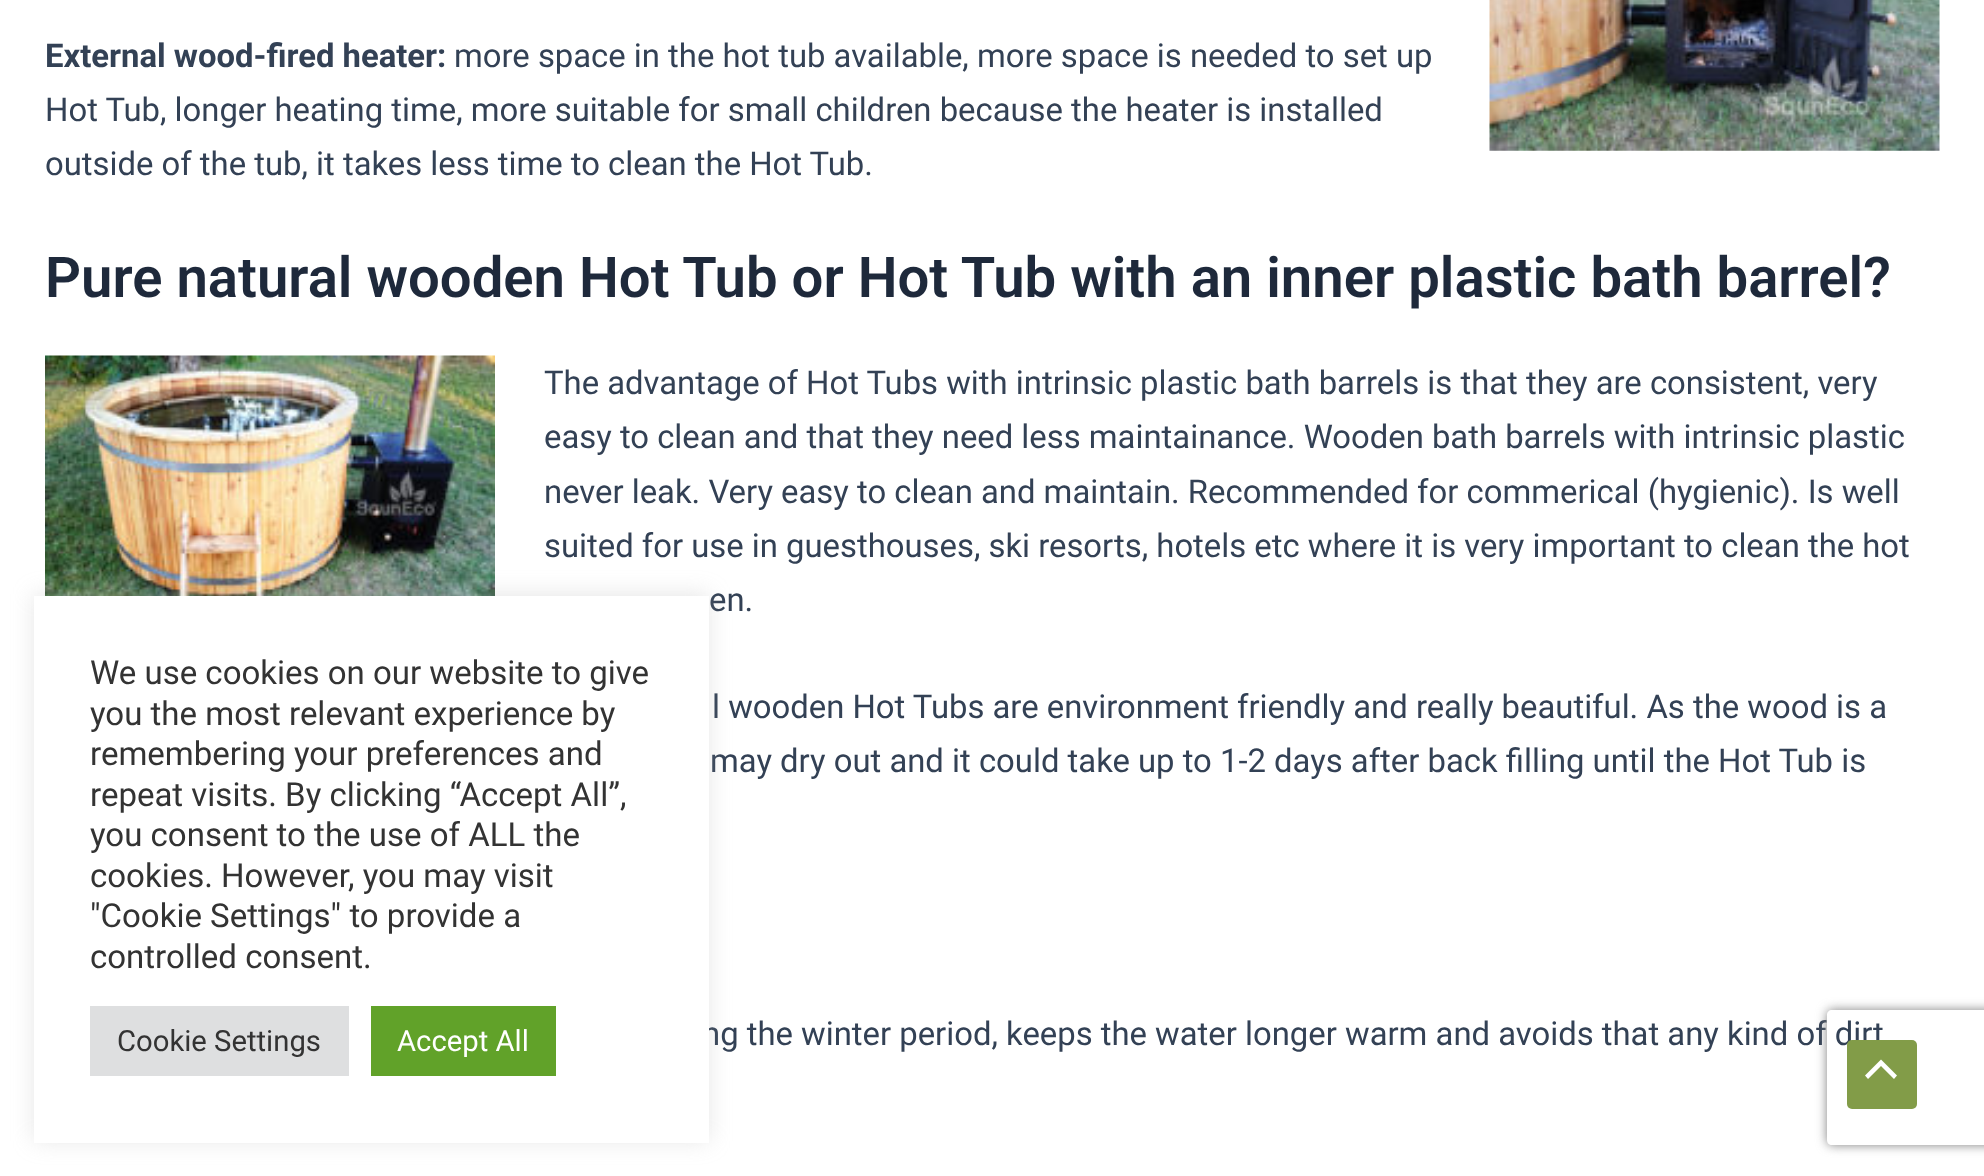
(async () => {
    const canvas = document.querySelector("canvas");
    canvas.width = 1984;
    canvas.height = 1176;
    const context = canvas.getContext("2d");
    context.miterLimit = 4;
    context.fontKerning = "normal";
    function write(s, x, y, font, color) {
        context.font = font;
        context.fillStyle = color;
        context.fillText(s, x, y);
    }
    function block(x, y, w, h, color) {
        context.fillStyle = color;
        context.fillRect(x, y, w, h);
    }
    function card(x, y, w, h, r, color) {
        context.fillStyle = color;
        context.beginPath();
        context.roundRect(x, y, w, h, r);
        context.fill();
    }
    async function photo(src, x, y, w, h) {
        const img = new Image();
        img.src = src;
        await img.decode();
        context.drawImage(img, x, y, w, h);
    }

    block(0, 0, 1984, 1176, "rgb(255, 255, 255)");
    write("External wood-fired heater:", 45, 67, "bold 32.85px Roboto", "rgb(51, 65, 85)");
    write("more space in the hot tub available, more space is needed to set up", 454, 67, "32.85px Roboto", "rgb(51, 65, 85)");
    write("Hot Tub, longer heating time, more suitable for small children because the heater is installed", 45, 121, "32.85px Roboto", "rgb(51, 65, 85)");
    write("outside of the tub, it takes less time to clean the Hot Tub.", 45, 175, "32.85px Roboto", "rgb(51, 65, 85)");
    await photo("media/1.png", 1489, 0, 451, 151);
    write("Pure natural wooden Hot Tub or Hot Tub with an inner plastic bath barrel?", 45, 297, "600 56.25px Roboto", "rgb(30, 41, 59)");
    await photo("media/2.png", 45, 355, 450, 241);
    write("The advantage of Hot Tubs with intrinsic plastic bath barrels is that they are consistent, very", 544, 394, "32.85px Roboto", "rgb(51, 65, 85)");
    write("easy to clean and that they need less maintainance. Wooden bath barrels with intrinsic plastic", 544, 448, "32.85px Roboto", "rgb(51, 65, 85)");
    write("never leak. Very easy to clean and maintain. Recommended for commerical (hygienic). Is well", 544, 503, "32.85px Roboto", "rgb(51, 65, 85)");
    write("suited for use in guesthouses, ski resorts, hotels etc where it is very important to clean the hot", 544, 557, "32.85px Roboto", "rgb(51, 65, 85)");
    write("en.", 709, 611, "32.85px Roboto", "rgb(51, 65, 85)");
    write("l wooden Hot Tubs are environment friendly and really beautiful. As the wood is a", 712, 718, "32.85px Roboto", "rgb(51, 65, 85)");
    write("may dry out and it could take up to 1-2 days after back filling until the Hot Tub is", 710, 772, "32.85px Roboto", "rgb(51, 65, 85)");
    write("ng the winter period, keeps the water longer warm and avoids that any kind of dirt", 702, 1045, "32.85px Roboto", "rgb(51, 65, 85)");
    context.fillStyle = "rgba(172, 171, 171, 0.3)";
    context.filter = "blur(11px)";
    context.beginPath();
    context.rect(34, 594, 675, 547);
    context.fill();
    context.filter = "none";
    block(34, 596, 675, 547, "rgb(255, 255, 255)");
    write("We use cookies on our website to give", 90, 684, "33px Roboto", "rgb(51, 51, 51)");
    write("you the most relevant experience by", 90, 725, "33px Roboto", "rgb(51, 51, 51)");
    write("remembering your preferences and", 90, 765, "33px Roboto", "rgb(51, 51, 51)");
    write("repeat visits. By clicking “Accept All”,", 90, 806, "33px Roboto", "rgb(51, 51, 51)");
    write("you consent to the use of ALL the", 90, 846, "33px Roboto", "rgb(51, 51, 51)");
    write("cookies. However, you may visit", 90, 887, "33px Roboto", "rgb(51, 51, 51)");
    write("\"Cookie Settings\" to provide a", 90, 927, "33px Roboto", "rgb(51, 51, 51)");
    write("controlled consent.", 90, 968, "33px Roboto", "rgb(51, 51, 51)");
    block(90, 1006, 259, 70, "rgb(222, 223, 224)");
    write("Cookie Settings", 117, 1051, "29.25px Roboto", "rgb(51, 51, 51)");
    block(371, 1006, 185, 70, "rgb(97, 162, 41)");
    write("Accept All", 397, 1051, "29.25px Roboto", "rgb(255, 255, 255)");
    context.save();
    context.beginPath();
    context.moveTo(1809, 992);
    context.lineTo(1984, 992);
    context.lineTo(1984, 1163);
    context.lineTo(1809, 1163);
    context.closePath();
    context.moveTo(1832, 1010);
    context.lineTo(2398, 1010);
    context.bezierCurveTo(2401, 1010, 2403, 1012, 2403, 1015);
    context.lineTo(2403, 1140);
    context.bezierCurveTo(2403, 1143, 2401, 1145, 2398, 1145);
    context.lineTo(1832, 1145);
    context.bezierCurveTo(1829, 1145, 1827, 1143, 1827, 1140);
    context.lineTo(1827, 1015);
    context.bezierCurveTo(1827, 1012, 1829, 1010, 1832, 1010);
    context.closePath();
    context.clip("evenodd");
    context.fillStyle = "rgb(128, 128, 128)";
    context.filter = "blur(5.5px)";
    context.beginPath();
    context.roundRect(1827, 1010, 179, 135, 5);
    context.fill();
    context.filter = "none";
    context.restore();
    card(1847, 1040, 70, 69, 5, "rgb(130, 156, 72)");
    context.fillStyle = "rgb(255, 255, 255)";
    context.beginPath();
    context.moveTo(1897, 1075.5);
    context.lineTo(1881, 1059.5);
    context.lineTo(1865, 1075.5);
    context.lineTo(1868, 1079);
    context.lineTo(1881, 1066);
    context.lineTo(1894, 1079);
    context.closePath();
    context.fill();
})();
